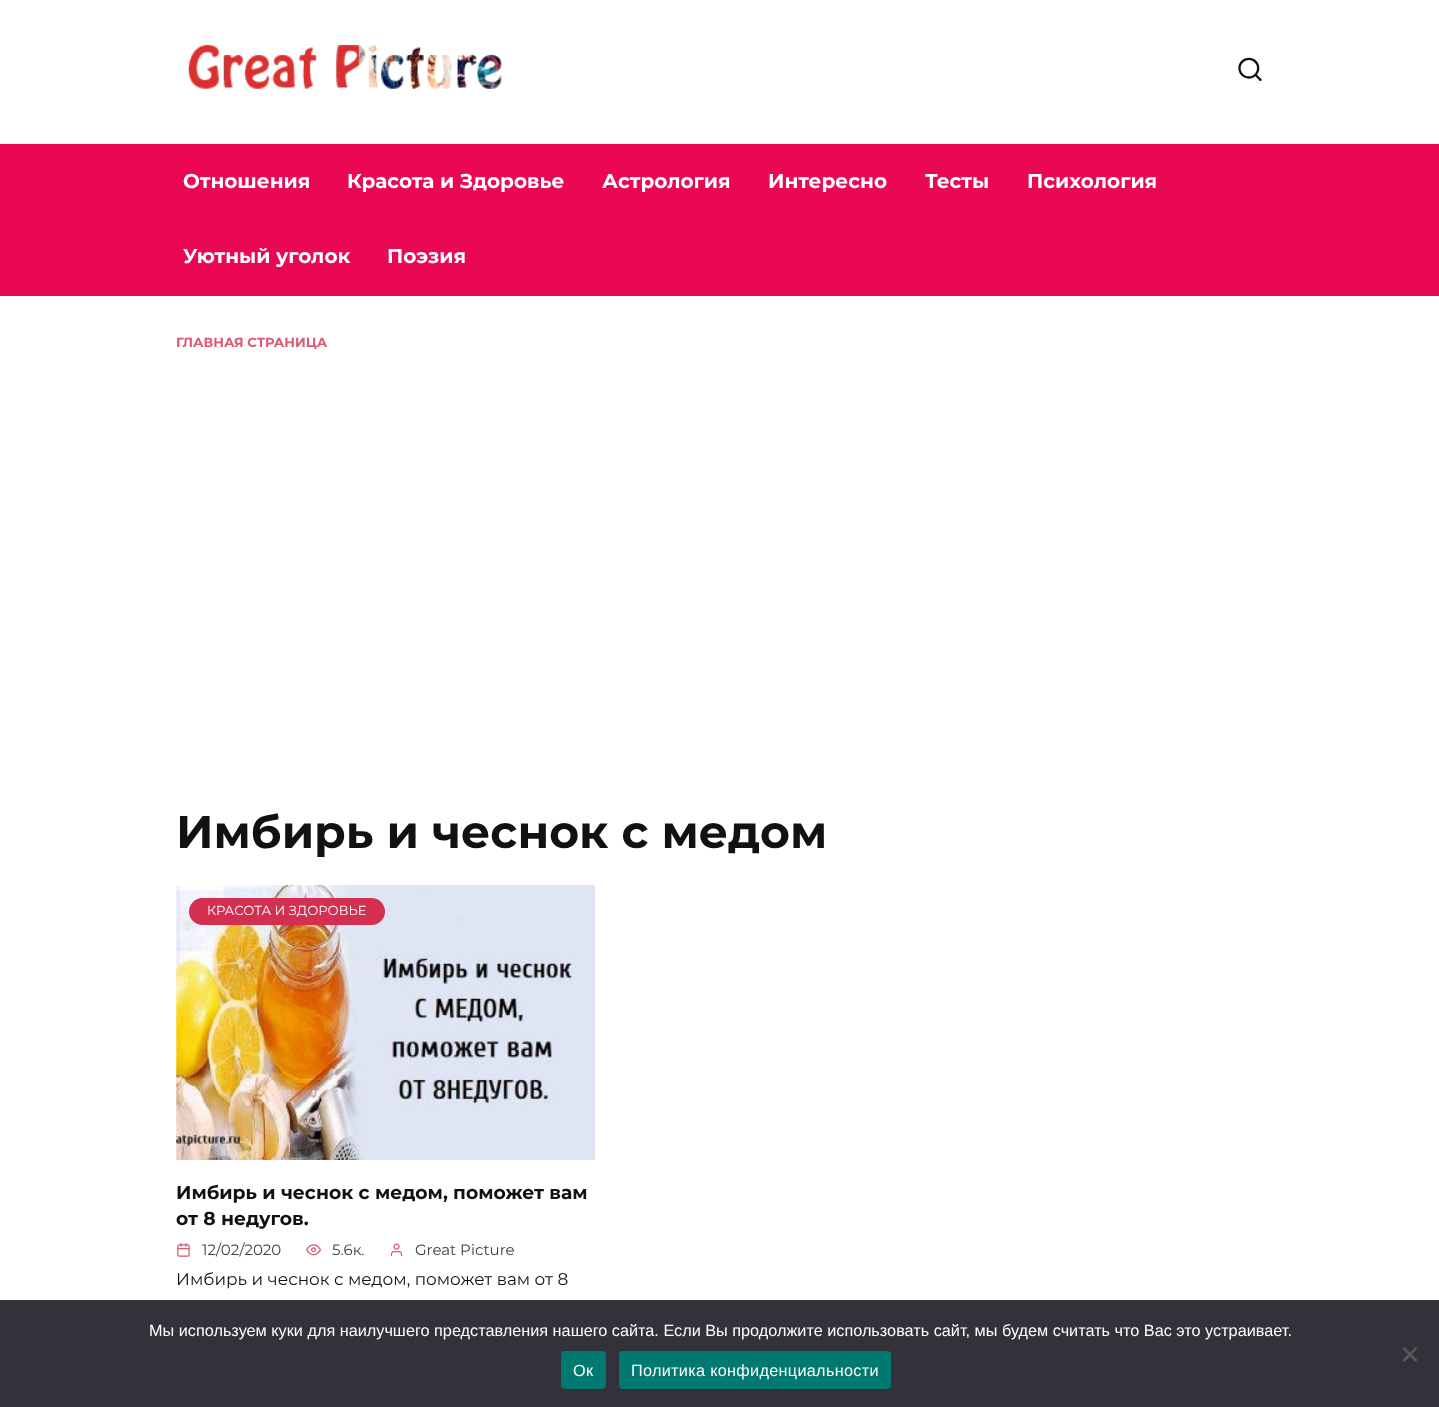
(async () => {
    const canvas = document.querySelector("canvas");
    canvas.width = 1439;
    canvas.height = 1407;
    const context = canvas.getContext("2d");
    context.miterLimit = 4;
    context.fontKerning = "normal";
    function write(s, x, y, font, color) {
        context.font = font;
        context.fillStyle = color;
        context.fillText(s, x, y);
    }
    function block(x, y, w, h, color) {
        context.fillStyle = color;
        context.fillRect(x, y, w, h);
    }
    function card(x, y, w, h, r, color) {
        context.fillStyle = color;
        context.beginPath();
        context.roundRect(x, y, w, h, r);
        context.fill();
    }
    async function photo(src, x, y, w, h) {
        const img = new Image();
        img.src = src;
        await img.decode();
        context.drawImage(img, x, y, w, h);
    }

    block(0, 0, 1439, 1407, "rgb(255, 255, 255)");
    block(0, 143, 1439, 1, "rgb(242, 245, 249)");
    await photo("media/1.png", 188, 44, 314, 45);
    write("🔍", 1236, 81, "28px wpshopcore", "rgb(17, 17, 17)");
    block(0, 144, 1439, 152, "rgb(234, 7, 86)");
    write("Отношения", 183, 188, "bold 20px Montserrat", "rgb(255, 255, 255)");
    write("Красота и Здоровье", 347, 188, "bold 20px Montserrat", "rgb(255, 255, 255)");
    write("Астрология", 602, 188, "bold 20px Montserrat", "rgb(255, 255, 255)");
    write("Интересно", 768, 188, "bold 20px Montserrat", "rgb(255, 255, 255)");
    write("Тесты", 925, 188, "bold 20px Montserrat", "rgb(255, 255, 255)");
    write("Психология", 1027, 188, "bold 20px Montserrat", "rgb(255, 255, 255)");
    write("Уютный уголок", 183, 263, "bold 20px Montserrat", "rgb(255, 255, 255)");
    write("Поэзия", 387, 263, "bold 20px Montserrat", "rgb(255, 255, 255)");
    write("ГЛАВНАЯ СТРАНИЦА", 176, 347, "bold 13.1px Montserrat", "rgb(220, 89, 116)");
    write("Имбирь и чеснок с медом", 176, 848, "bold 45.75px Montserrat", "rgb(17, 17, 17)");
    await photo("media/2.png", 176, 885, 419, 275);
    card(189, 898, 196, 27, 13.5, "rgb(211, 48, 81)");
    write("КРАСОТА И ЗДОРОВЬЕ", 207, 915, "13.1px Montserrat", "rgb(255, 255, 255)");
    write("Имбирь и чеснок с медом, поможет вам", 176, 1199, "bold 18.75px Montserrat", "rgb(17, 17, 17)");
    write("от 8 недугов.", 176, 1225, "bold 18.75px Montserrat", "rgb(17, 17, 17)");
    write("📅", 176, 1256, "15px wpshopcore", "rgb(220, 89, 116)");
    write("12/02/2020", 202, 1255, "15px Montserrat", "rgb(65, 65, 65)");
    write("👀", 306, 1256, "15px wpshopcore", "rgb(220, 89, 116)");
    write("5.6к.", 332, 1255, "15px Montserrat", "rgb(65, 65, 65)");
    write("👤", 389, 1256, "15px wpshopcore", "rgb(220, 89, 116)");
    write("Great Picture", 415, 1255, "15px Montserrat", "rgb(65, 65, 65)");
    write("Имбирь и чеснок с медом, поможет вам от 8", 176, 1285, "16.9px Montserrat", "rgb(17, 17, 17)");
    block(0, 1300, 1439, 107, "rgb(50, 50, 58)");
    write("Мы используем куки для наилучшего представления нашего сайта. Если Вы продолжите использовать сайт, мы будем считать что Вас это устраивает.", 149, 1336, "16.25px Liberation Sans", "rgb(255, 255, 255)");
    context.fillStyle = "rgb(89, 89, 93)";
    context.beginPath();
    context.moveTo(1415.5, 1347);
    context.lineTo(1417.5, 1348.5);
    context.lineTo(1404.5, 1362);
    context.lineTo(1402.5, 1360);
    context.closePath();
    context.fill();
    context.beginPath();
    context.moveTo(1402.5, 1348.5);
    context.lineTo(1404.5, 1347);
    context.lineTo(1417.5, 1360);
    context.lineTo(1415.5, 1362);
    context.closePath();
    context.fill();
    card(561, 1351, 45, 38, 4, "rgb(0, 122, 112)");
    context.letterSpacing = "0.3px";
    write("Ок", 573, 1376, "16.25px Liberation Sans", "rgb(255, 255, 255)");
    card(619, 1351, 272, 38, 4, "rgb(0, 122, 112)");
    write("Политика конфиденциальности", 631, 1376, "16.25px Liberation Sans", "rgb(255, 255, 255)");
})();
